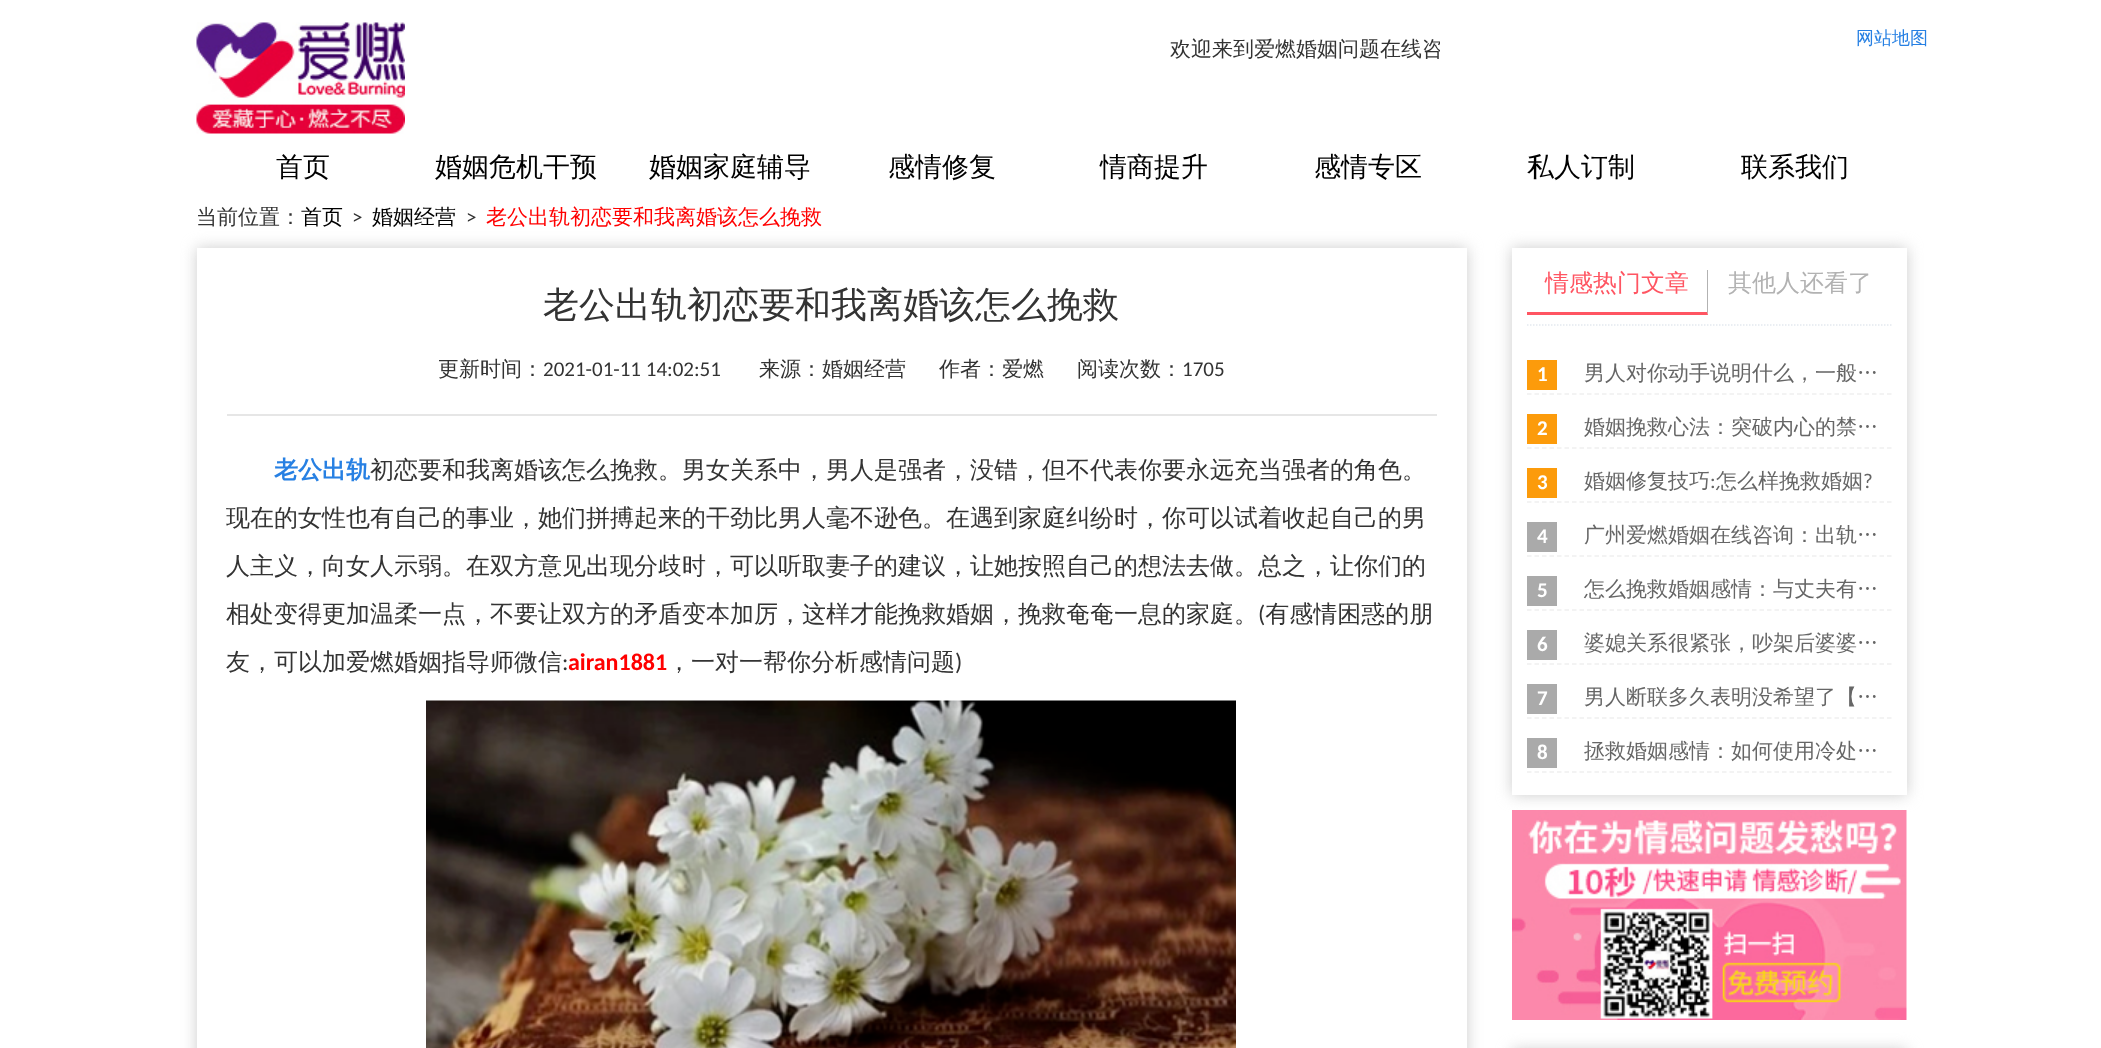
(async () => {
    const canvas = document.querySelector("canvas");
    canvas.width = 2101;
    canvas.height = 1048;
    const context = canvas.getContext("2d");
    context.miterLimit = 4;
    context.fontKerning = "normal";
    function write(s, x, y, font, color) {
        context.font = font;
        context.fillStyle = color;
        context.fillText(s, x, y);
    }
    function block(x, y, w, h, color) {
        context.fillStyle = color;
        context.fillRect(x, y, w, h);
    }
    async function photo(src, x, y, w, h) {
        const img = new Image();
        img.src = src;
        await img.decode();
        context.drawImage(img, x, y, w, h);
    }

    block(0, 0, 2101, 1048, "rgb(255, 255, 255)");
    await photo("media/1.png", 196, 22, 209, 112);
    context.save();
    context.beginPath();
    context.rect(474, 35, 966, 45);
    context.clip();
    write("欢迎来到爱燃婚姻问题在线咨", 1170, 56, "500 21px WenQuanYi Zen Hei", "rgb(51, 51, 51)");
    context.restore();
    write("网站地图", 1856, 44, "500 18px WenQuanYi Zen Hei", "rgb(39, 128, 227)");
    write("首页", 276, 176, "500 27px WenQuanYi Zen Hei", "rgb(0, 0, 0)");
    write("婚姻危机干预", 435, 176, "500 27px WenQuanYi Zen Hei", "rgb(0, 0, 0)");
    write("婚姻家庭辅导", 649, 176, "500 27px WenQuanYi Zen Hei", "rgb(0, 0, 0)");
    write("感情修复", 888, 176, "500 27px WenQuanYi Zen Hei", "rgb(0, 0, 0)");
    write("情商提升", 1100, 176, "500 27px WenQuanYi Zen Hei", "rgb(0, 0, 0)");
    write("感情专区", 1314, 176, "500 27px WenQuanYi Zen Hei", "rgb(0, 0, 0)");
    write("私人订制", 1527, 176, "500 27px WenQuanYi Zen Hei", "rgb(0, 0, 0)");
    write("联系我们", 1741, 176, "500 27px WenQuanYi Zen Hei", "rgb(0, 0, 0)");
    write("当前位置：", 196, 224, "500 21px WenQuanYi Zen Hei", "rgb(51, 51, 51)");
    write("首页", 301, 224, "500 21px WenQuanYi Zen Hei", "rgb(0, 0, 0)");
    write(">", 352, 224, "21px Carlito", "rgb(51, 51, 51)");
    write("婚姻经营", 372, 224, "500 21px WenQuanYi Zen Hei", "rgb(0, 0, 0)");
    write(">", 466, 224, "21px Carlito", "rgb(51, 51, 51)");
    write("老公出轨初恋要和我离婚该怎么挽救", 486, 224, "500 21px WenQuanYi Zen Hei", "rgb(255, 0, 0)");
    context.save();
    context.beginPath();
    context.moveTo(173, 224);
    context.lineTo(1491, 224);
    context.lineTo(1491, 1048);
    context.lineTo(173, 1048);
    context.closePath();
    context.moveTo(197, 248);
    context.lineTo(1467, 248);
    context.lineTo(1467, 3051);
    context.lineTo(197, 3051);
    context.closePath();
    context.clip("evenodd");
    context.fillStyle = "rgb(204, 204, 204)";
    context.filter = "blur(7.5px)";
    context.beginPath();
    context.rect(197, 248, 1270, 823);
    context.fill();
    context.filter = "none";
    context.restore();
    write("老公出轨初恋要和我离婚该怎么挽救", 543, 317, "500 36px WenQuanYi Zen Hei", "rgb(51, 51, 51)");
    write("更新时间：", 438, 376, "500 21px WenQuanYi Zen Hei", "rgb(51, 51, 51)");
    write("2021-01-11 14:02:51", 543, 376, "21px Carlito", "rgb(51, 51, 51)");
    write("来源：婚姻经营", 759, 376, "500 21px WenQuanYi Zen Hei", "rgb(51, 51, 51)");
    write("作者：爱燃", 939, 376, "500 21px WenQuanYi Zen Hei", "rgb(51, 51, 51)");
    write("阅读次数：", 1077, 376, "500 21px WenQuanYi Zen Hei", "rgb(51, 51, 51)");
    write("1705", 1182, 376, "21px Carlito", "rgb(51, 51, 51)");
    block(227, 414, 1210, 2, "rgb(230, 230, 230)");
    write("老公出轨", 274, 478, "bold 24px WenQuanYi Zen Hei", "rgb(39, 128, 227)");
    write("初恋要和我离婚该怎么挽救。男女关系中，男人是强者，没错，但不代表你要永远充当强者的角色。", 370, 478, "500 24px WenQuanYi Zen Hei", "rgb(51, 51, 51)");
    write("现在的女性也有自己的事业，她们拼搏起来的干劲比男人毫不逊色。在遇到家庭纠纷时，你可以试着收起自己的男", 226, 526, "500 24px WenQuanYi Zen Hei", "rgb(51, 51, 51)");
    write("人主义，向女人示弱。在双方意见出现分歧时，可以听取妻子的建议，让她按照自己的想法去做。总之，让你们的", 226, 574, "500 24px WenQuanYi Zen Hei", "rgb(51, 51, 51)");
    write("相处变得更加温柔一点，不要让双方的矛盾变本加厉，这样才能挽救婚姻，挽救奄奄一息的家庭。 有感情困惑的朋", 226, 622, "500 24px WenQuanYi Zen Hei", "rgb(51, 51, 51)");
    write("(", 1258, 622, "24px Carlito", "rgb(51, 51, 51)");
    write("友，可以加爱燃婚姻指导师微信", 226, 670, "500 24px WenQuanYi Zen Hei", "rgb(51, 51, 51)");
    write(":", 562, 670, "24px Carlito", "rgb(51, 51, 51)");
    write("airan1881", 568, 670, "bold 24px Carlito", "rgb(255, 0, 0)");
    write("，一对一帮你分析感情问题", 667, 670, "500 24px WenQuanYi Zen Hei", "rgb(51, 51, 51)");
    write(")", 955, 670, "24px Carlito", "rgb(51, 51, 51)");
    await photo("media/2.png", 426, 700, 810, 348);
    context.fillStyle = "rgb(204, 204, 204)";
    context.filter = "blur(7.5px)";
    context.beginPath();
    context.rect(1512, 248, 395, 547);
    context.fill();
    context.filter = "none";
    block(1512, 248, 395, 547, "rgb(255, 255, 255)");
    context.beginPath();
    context.moveTo(1527, 325);
    context.lineTo(1891.5, 325);
    context.strokeStyle = "rgb(228, 233, 240)";
    context.lineWidth = 1.5;
    context.setLineDash([1.5, 1.5]);
    context.stroke();
    context.fillStyle = "rgb(178, 178, 178)";
    context.beginPath();
    context.moveTo(1708, 270);
    context.lineTo(1708, 315);
    context.lineTo(1707, 312);
    context.lineTo(1707, 270);
    context.closePath();
    context.fill();
    context.fillStyle = "rgb(255, 85, 98)";
    context.beginPath();
    context.moveTo(1708, 315);
    context.lineTo(1527, 315);
    context.lineTo(1527, 312);
    context.lineTo(1707, 312);
    context.closePath();
    context.fill();
    write("情感热门文章", 1545, 291, "500 24px WenQuanYi Zen Hei", "rgb(255, 85, 98)");
    write("其他人还看了", 1728, 291, "500 24px WenQuanYi Zen Hei", "rgb(178, 178, 178)");
    context.beginPath();
    context.moveTo(1527, 394);
    context.lineTo(1891.5, 394);
    context.strokeStyle = "rgb(240, 240, 240)";
    context.setLineDash([4.5, 3]);
    context.stroke();
    block(1527, 360, 30, 30, "rgb(252, 155, 11)");
    write("1", 1537, 381, "bold 21px Carlito", "rgb(255, 255, 255)");
    write("男人对你动手说明什么，一般…", 1584, 380, "500 21px WenQuanYi Zen Hei", "rgb(102, 102, 102)");
    context.beginPath();
    context.moveTo(1527, 448);
    context.lineTo(1891.5, 448);
    context.stroke();
    block(1527, 414, 30, 30, "rgb(252, 155, 11)");
    write("2", 1537, 435, "bold 21px Carlito", "rgb(255, 255, 255)");
    write("婚姻挽救心法：突破内心的禁…", 1584, 434, "500 21px WenQuanYi Zen Hei", "rgb(102, 102, 102)");
    context.beginPath();
    context.moveTo(1527, 502);
    context.lineTo(1891.5, 502);
    context.stroke();
    block(1527, 468, 30, 30, "rgb(252, 155, 11)");
    write("3", 1537, 489, "bold 21px Carlito", "rgb(255, 255, 255)");
    write("婚姻修复技巧", 1584, 488, "500 21px WenQuanYi Zen Hei", "rgb(102, 102, 102)");
    write(":", 1710, 488, "21px Carlito", "rgb(102, 102, 102)");
    write("怎么样挽救婚姻", 1716, 488, "500 21px WenQuanYi Zen Hei", "rgb(102, 102, 102)");
    write("?", 1863, 488, "21px Carlito", "rgb(102, 102, 102)");
    context.beginPath();
    context.moveTo(1527, 556);
    context.lineTo(1891.5, 556);
    context.stroke();
    block(1527, 522, 30, 30, "rgb(170, 170, 170)");
    write("4", 1537, 543, "bold 21px Carlito", "rgb(255, 255, 255)");
    write("广州爱燃婚姻在线咨询：出轨…", 1584, 542, "500 21px WenQuanYi Zen Hei", "rgb(102, 102, 102)");
    context.beginPath();
    context.moveTo(1527, 610);
    context.lineTo(1891.5, 610);
    context.stroke();
    block(1527, 576, 30, 30, "rgb(170, 170, 170)");
    write("5", 1537, 597, "bold 21px Carlito", "rgb(255, 255, 255)");
    write("怎么挽救婚姻感情：与丈夫有…", 1584, 596, "500 21px WenQuanYi Zen Hei", "rgb(102, 102, 102)");
    context.beginPath();
    context.moveTo(1527, 664);
    context.lineTo(1891.5, 664);
    context.stroke();
    block(1527, 630, 30, 30, "rgb(170, 170, 170)");
    write("6", 1537, 651, "bold 21px Carlito", "rgb(255, 255, 255)");
    write("婆媳关系很紧张，吵架后婆婆…", 1584, 650, "500 21px WenQuanYi Zen Hei", "rgb(102, 102, 102)");
    context.beginPath();
    context.moveTo(1527, 718);
    context.lineTo(1891.5, 718);
    context.stroke();
    block(1527, 684, 30, 30, "rgb(170, 170, 170)");
    write("7", 1537, 705, "bold 21px Carlito", "rgb(255, 255, 255)");
    write("男人断联多久表明没希望了【…", 1584, 704, "500 21px WenQuanYi Zen Hei", "rgb(102, 102, 102)");
    context.beginPath();
    context.moveTo(1527, 772);
    context.lineTo(1891.5, 772);
    context.stroke();
    block(1527, 738, 30, 30, "rgb(170, 170, 170)");
    write("8", 1537, 759, "bold 21px Carlito", "rgb(255, 255, 255)");
    write("拯救婚姻感情：如何使用冷处…", 1584, 758, "500 21px WenQuanYi Zen Hei", "rgb(102, 102, 102)");
    await photo("media/3.png", 1512, 810, 395, 210);
    context.fillStyle = "rgb(204, 204, 204)";
    context.filter = "blur(7.5px)";
    context.beginPath();
    context.rect(1512, 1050, 395, 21);
    context.fill();
    context.filter = "none";
})();
